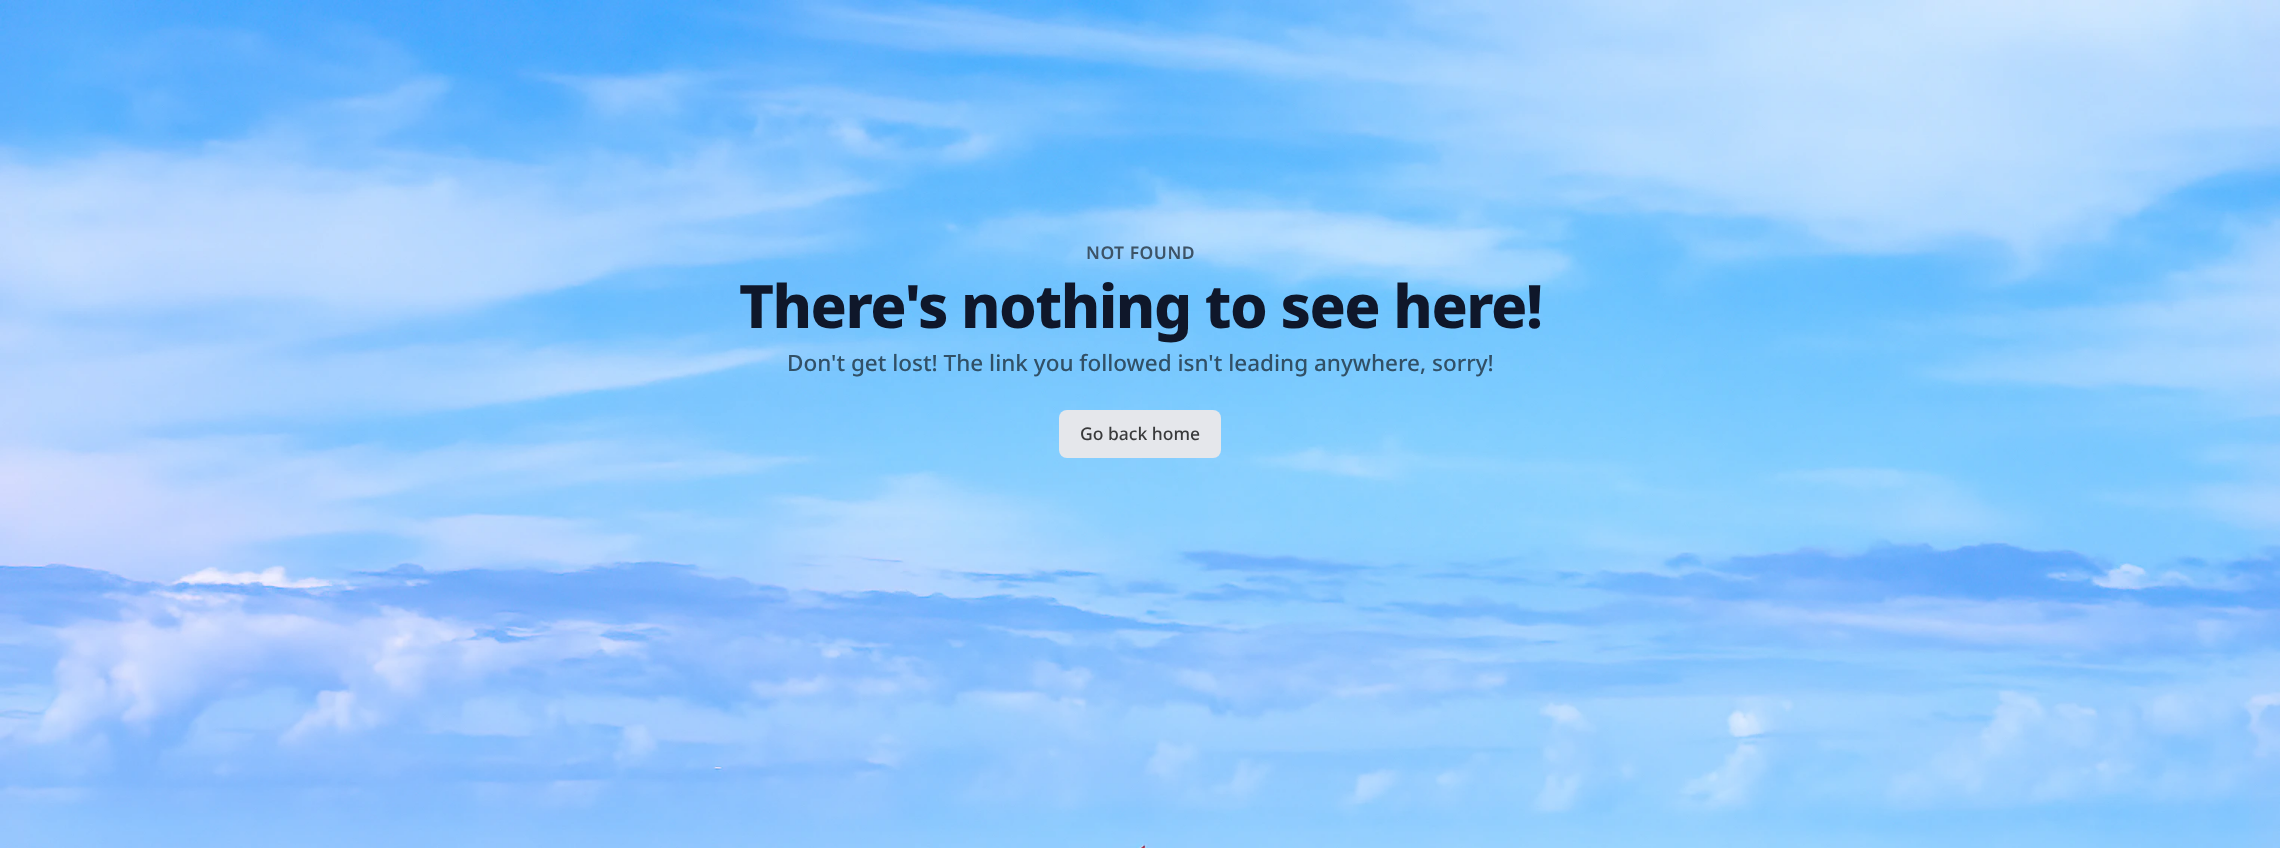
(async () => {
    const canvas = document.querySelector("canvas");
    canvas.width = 2280;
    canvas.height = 848;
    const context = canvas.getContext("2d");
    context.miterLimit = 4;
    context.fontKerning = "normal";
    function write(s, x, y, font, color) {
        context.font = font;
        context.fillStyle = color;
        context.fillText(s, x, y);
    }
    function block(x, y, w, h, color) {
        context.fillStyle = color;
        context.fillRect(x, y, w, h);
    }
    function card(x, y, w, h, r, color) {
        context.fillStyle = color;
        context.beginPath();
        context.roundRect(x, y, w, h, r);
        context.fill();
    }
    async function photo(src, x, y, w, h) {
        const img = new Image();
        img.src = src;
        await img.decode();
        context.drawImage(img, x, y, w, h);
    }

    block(0, 0, 2280, 848, "rgb(255, 255, 255)");
    await photo("media/1.png", 0, 0, 2280, 848);
    context.letterSpacing = "0.5px";
    write("NOT FOUND", 1086, 259, "600 17.5px Noto Sans", "rgb(61, 83, 102)");
    context.letterSpacing = "-1.5px";
    write("There's nothing to see here!", 739, 328, "800 60px Noto Sans", "rgb(15, 23, 42)");
    context.letterSpacing = "0px";
    write("Don't get lost! The link you followed isn't leading anywhere, sorry!", 787, 371, "500 22.5px Noto Sans", "rgb(49, 80, 102)");
    card(1059, 410, 162, 48, 8, "rgb(229, 231, 235)");
    write("Go back home", 1080, 440, "500 17.5px Noto Sans", "rgb(57, 58, 59)");
})();
